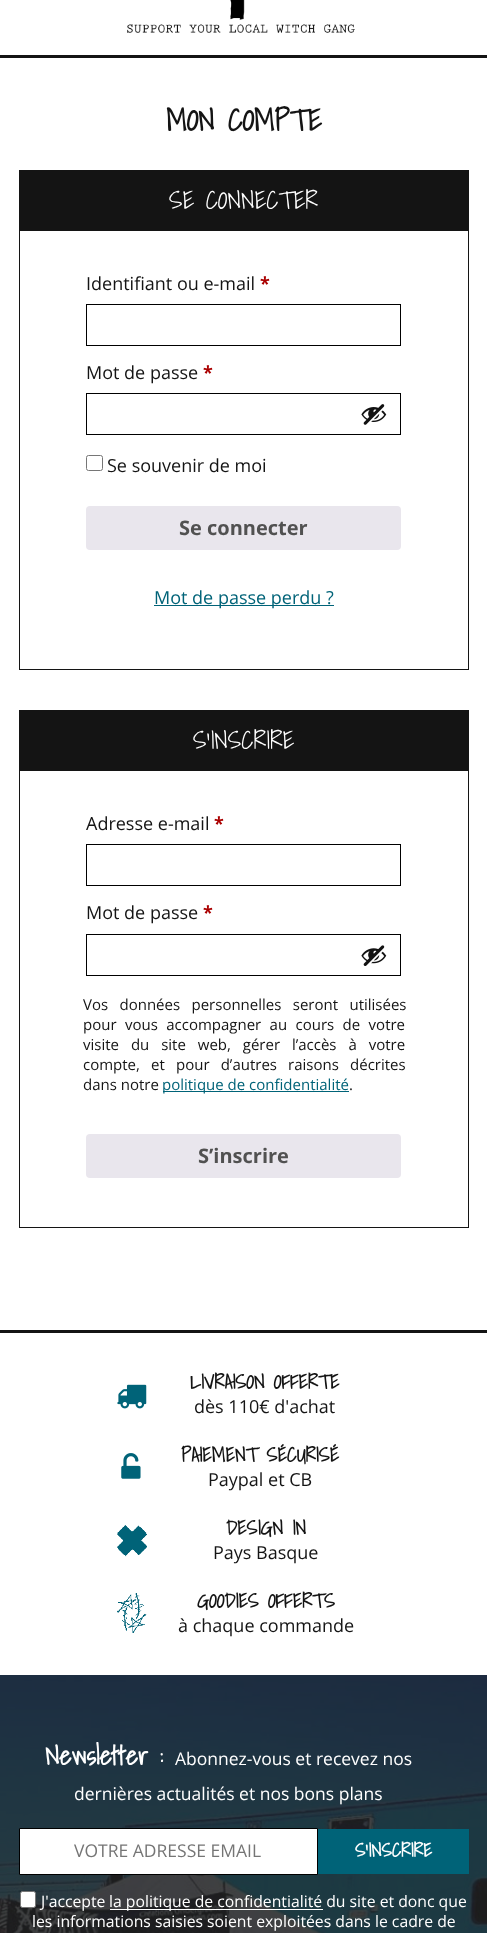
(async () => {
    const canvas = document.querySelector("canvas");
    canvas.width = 487;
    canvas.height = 1933;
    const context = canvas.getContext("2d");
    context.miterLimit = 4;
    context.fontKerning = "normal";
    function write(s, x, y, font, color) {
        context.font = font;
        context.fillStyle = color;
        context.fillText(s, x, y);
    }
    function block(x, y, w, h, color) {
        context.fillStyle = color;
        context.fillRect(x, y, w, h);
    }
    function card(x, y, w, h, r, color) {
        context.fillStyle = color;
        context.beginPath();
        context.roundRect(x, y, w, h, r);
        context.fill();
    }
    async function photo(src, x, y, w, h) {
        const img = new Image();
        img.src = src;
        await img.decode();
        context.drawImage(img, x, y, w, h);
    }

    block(0, 0, 487, 1933, "rgb(255, 255, 255)");
    await photo("media/1.png", 127, 0, 228, 33);
    block(0, 55, 487, 3, "rgb(20, 20, 20)");
    write("MON COMPTE", 166, 131, "bold 30px Shadows Into Light", "rgb(20, 20, 20)");
    block(19, 170, 450, 60, "rgb(20, 20, 20)");
    write("SE CONNECTER", 169, 209, "300 25px Shadows Into Light", "rgb(255, 255, 255)");
    context.strokeStyle = "rgb(20, 20, 20)";
    context.strokeRect(19.5, 230.5, 449, 439);
    write("Identifiant ou e-mail", 86, 290, "18px Open Sans", "rgb(20, 20, 20)");
    write("*", 260, 290, "bold 18px Open Sans", "rgb(170, 0, 0)");
    context.strokeStyle = "rgb(0, 0, 0)";
    context.strokeRect(86.5, 304.5, 314, 41);
    write("Mot de passe", 86, 379, "18px Open Sans", "rgb(20, 20, 20)");
    write("*", 203, 379, "bold 18px Open Sans", "rgb(170, 0, 0)");
    context.strokeRect(86.5, 393.5, 314, 41);
    await photo("media/2.png", 361, 404, 26, 21);
    context.beginPath();
    context.roundRect(86.5, 455.5, 16, 15, 2);
    context.strokeStyle = "rgb(118, 118, 118)";
    context.stroke();
    write("Se souvenir de moi", 107, 472, "18px Open Sans", "rgb(20, 20, 20)");
    card(86, 506, 315, 44, 4, "rgb(233, 230, 237)");
    write("Se connecter", 179, 535, "bold 20px Open Sans", "rgb(81, 81, 81)");
    block(154, 605, 180, 1, "rgb(0, 99, 120)");
    write("Mot de passe perdu ?", 154, 604, "18px Open Sans", "rgb(0, 99, 120)");
    block(19, 710, 450, 60, "rgb(20, 20, 20)");
    write("S’INSCRIRE", 193, 749, "300 25px Shadows Into Light", "rgb(255, 255, 255)");
    context.strokeStyle = "rgb(20, 20, 20)";
    context.strokeRect(19.5, 770.5, 449, 457);
    write("Adresse e-mail", 86, 830, "18px Open Sans", "rgb(20, 20, 20)");
    write("*", 214, 830, "bold 18px Open Sans", "rgb(170, 0, 0)");
    context.strokeStyle = "rgb(0, 0, 0)";
    context.strokeRect(86.5, 844.5, 314, 41);
    write("Mot de passe", 86, 919, "18px Open Sans", "rgb(20, 20, 20)");
    write("*", 203, 919, "bold 18px Open Sans", "rgb(170, 0, 0)");
    context.strokeRect(86.5, 934.5, 314, 41);
    await photo("media/3.png", 361, 945, 26, 21);
    context.wordSpacing = "7.5px";
    write("Vos données personnelles seront utilisées", 83, 1010, "15px Open Sans", "rgb(20, 20, 20)");
    context.wordSpacing = "4.5px";
    write("pour vous accompagner au cours de votre", 83, 1030, "15px Open Sans", "rgb(20, 20, 20)");
    context.wordSpacing = "8px";
    write("visite du site web, gérer l’accès à votre", 83, 1050, "15px Open Sans", "rgb(20, 20, 20)");
    context.wordSpacing = "7.25px";
    write("compte, et pour d’autres raisons décrites", 83, 1070, "15px Open Sans", "rgb(20, 20, 20)");
    context.wordSpacing = "0px";
    write("dans notre", 83, 1090, "15px Open Sans", "rgb(20, 20, 20)");
    block(163, 1091, 186, 1, "rgb(0, 99, 120)");
    write("politique de confidentialité", 162, 1090, "15px Open Sans", "rgb(0, 99, 120)");
    write(".", 349, 1090, "15px Open Sans", "rgb(20, 20, 20)");
    card(86, 1134, 315, 44, 4, "rgb(233, 230, 237)");
    write("S’inscrire", 198, 1163, "bold 20px Open Sans", "rgb(81, 81, 81)");
    block(0, 1330, 487, 3, "rgb(20, 20, 20)");
    await photo("media/4.png", 117, 1384, 30, 25);
    write("LIVRAISON OFFERTE", 190, 1389, "bold 20px Shadows Into Light", "rgb(20, 20, 20)");
    write("dès 110€ d'achat", 194, 1413, "18px Open Sans", "rgb(20, 20, 20)");
    await photo("media/5.png", 121, 1453, 20, 26);
    write("PAIEMENT SÉCURISÉ", 181, 1462, "bold 20px Shadows Into Light", "rgb(20, 20, 20)");
    write("Paypal et CB", 208, 1486, "18px Open Sans", "rgb(20, 20, 20)");
    await photo("media/6.png", 117, 1525, 30, 32);
    write("DESIGN IN", 226, 1535, "bold 20px Shadows Into Light", "rgb(20, 20, 20)");
    write("Pays Basque", 213, 1559, "18px Open Sans", "rgb(20, 20, 20)");
    await photo("media/7.png", 117, 1593, 30, 40);
    write("GOODIES OFFERTS", 197, 1608, "bold 20px Shadows Into Light", "rgb(20, 20, 20)");
    write("à chaque commande", 178, 1632, "18px Open Sans", "rgb(20, 20, 20)");
    await photo("media/8.png", 0, 1675, 487, 258);
    write("Newsletter :", 45, 1765, "bold 26.25px Shadows Into Light", "rgb(255, 255, 255)");
    write("Abonnez-vous et recevez nos", 175, 1765, "17.5px Open Sans", "rgb(255, 255, 255)");
    write("dernières actualités et nos bons plans", 74, 1800, "17.5px Open Sans", "rgb(255, 255, 255)");
    context.beginPath();
    context.rect(19.5, 1828.5, 298, 46);
    context.fill();
    context.stroke();
    write("VOTRE ADRESSE EMAIL", 74, 1857, "17.5px Open Sans", "rgb(117, 117, 117)");
    block(318, 1829, 151, 45, "rgb(0, 99, 120)");
    write("S'INSCRIRE", 355, 1857, "bold 19px Shadows Into Light", "rgb(255, 255, 255)");
    context.beginPath();
    context.roundRect(20.5, 1891.5, 15, 16, 2);
    context.fill();
    context.strokeStyle = "rgb(118, 118, 118)";
    context.stroke();
    write("J'accepte", 41, 1907, "15.75px Open Sans", "rgb(255, 255, 255)");
    block(110, 1909, 213, 1, "rgb(255, 255, 255)");
    write("la politique de confidentialité du site et donc que", 109, 1907, "15.75px Open Sans", "rgb(255, 255, 255)");
    write("les informations saisies soient exploitées dans le cadre de", 32, 1927, "15.75px Open Sans", "rgb(255, 255, 255)");
})();
